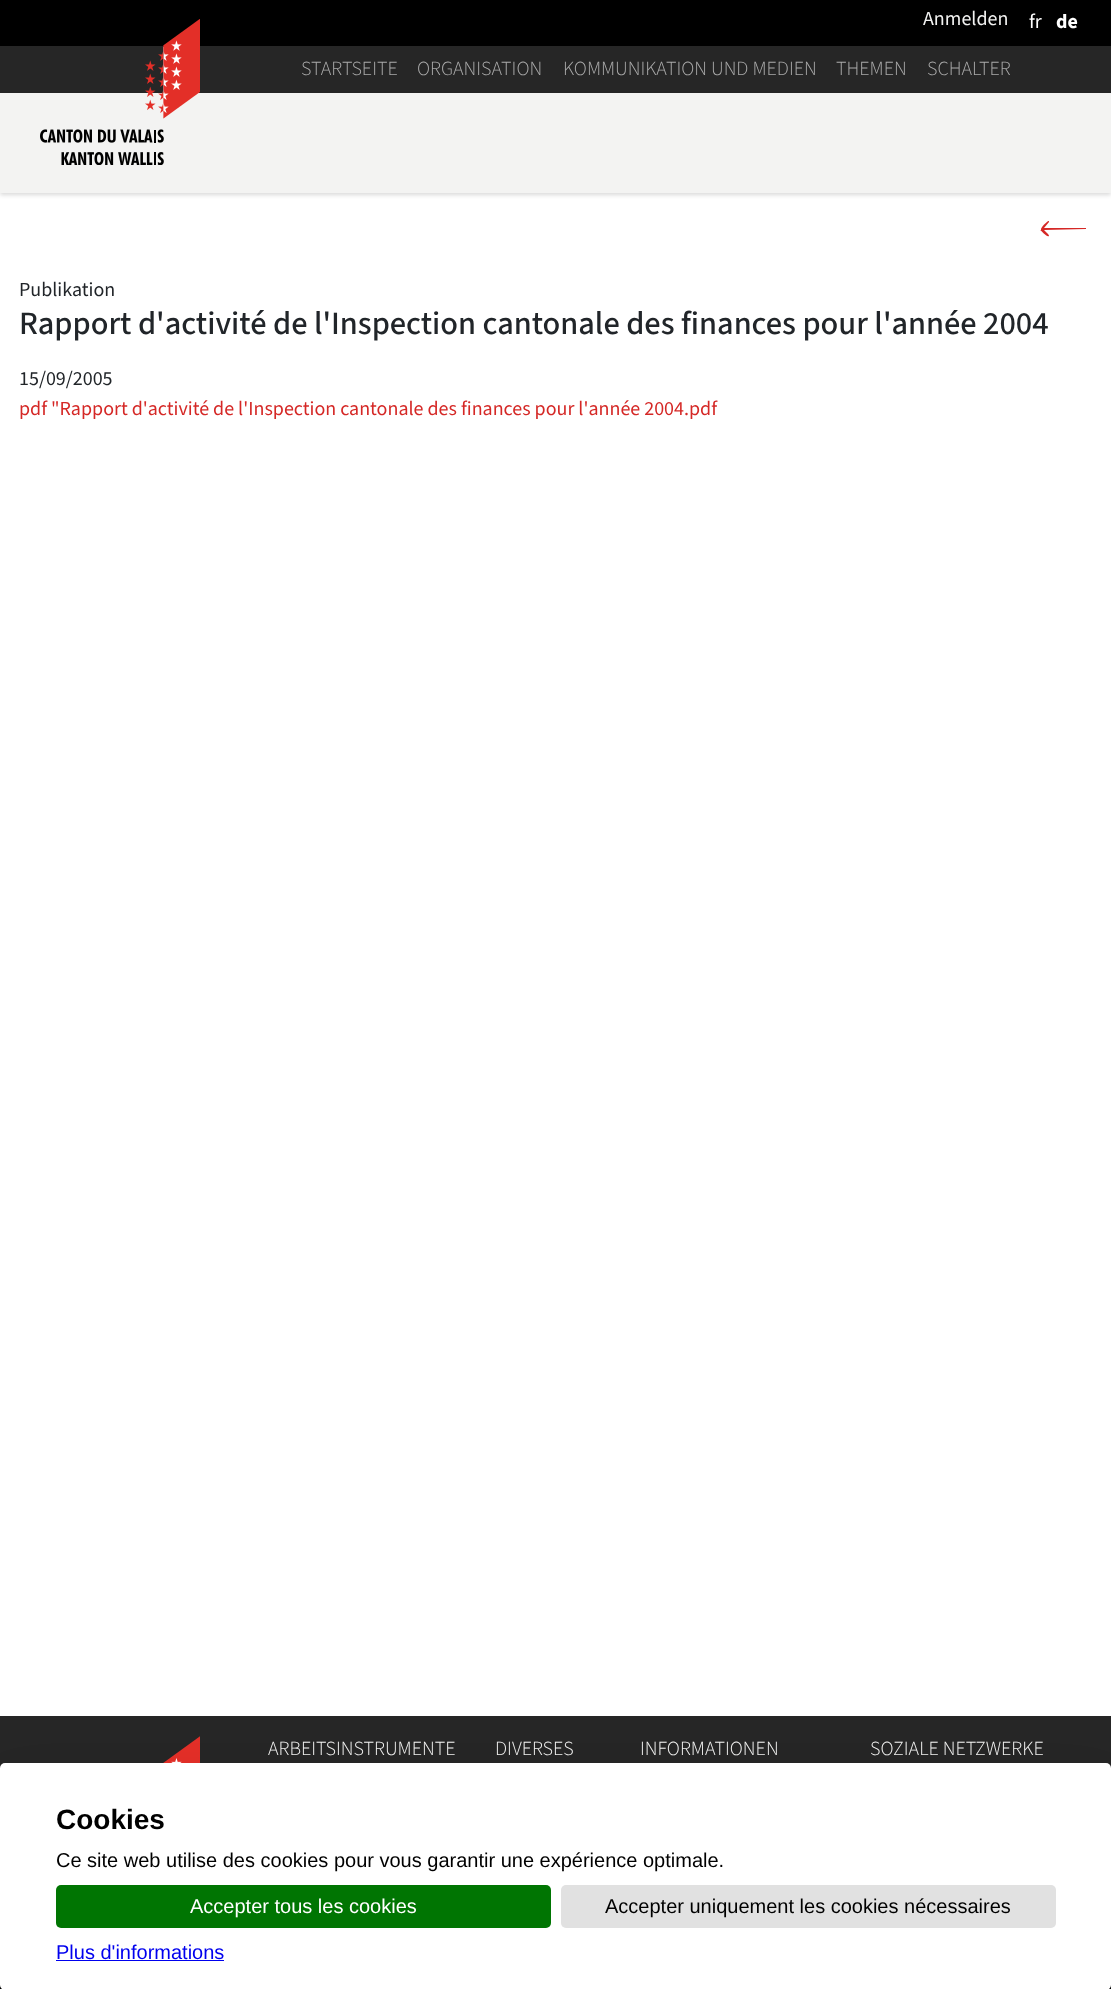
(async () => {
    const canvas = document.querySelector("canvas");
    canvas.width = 1111;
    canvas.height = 1989;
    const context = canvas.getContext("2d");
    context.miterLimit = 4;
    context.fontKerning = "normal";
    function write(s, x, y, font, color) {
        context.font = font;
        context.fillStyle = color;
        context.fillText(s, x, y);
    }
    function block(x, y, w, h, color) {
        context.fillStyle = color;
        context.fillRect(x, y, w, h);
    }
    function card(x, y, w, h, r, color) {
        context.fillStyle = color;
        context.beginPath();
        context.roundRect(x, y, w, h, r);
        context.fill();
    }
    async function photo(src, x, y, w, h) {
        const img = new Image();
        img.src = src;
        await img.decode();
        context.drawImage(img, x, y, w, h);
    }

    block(0, 0, 1111, 1989, "rgb(255, 255, 255)");
    block(0, 0, 1111, 46, "rgb(0, 0, 0)");
    write("Anmelden", 923, 25, "20px 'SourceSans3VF'", "rgb(243, 243, 242)");
    write("fr", 1029, 28, "20px 'SourceSans3VF'", "rgb(255, 255, 255)");
    write("de", 1056, 28, "bold 20px 'SourceSans3VF'", "rgb(255, 255, 255)");
    block(0, 46, 1111, 47, "rgb(38, 38, 38)");
    context.fillStyle = "rgba(0, 0, 0, 0.15)";
    context.filter = "blur(2px)";
    context.beginPath();
    context.rect(0, 95, 1111, 100);
    context.fill();
    context.filter = "none";
    block(0, 93, 1111, 100, "rgb(243, 243, 242)");
    await photo("media/1.png", 40, 19, 160, 146);
    write("STARTSEITE", 301, 75, "300 20px 'SourceSans3VF'", "rgb(170, 170, 170)");
    write("ORGANISATION", 417, 75, "300 20px 'SourceSans3VF'", "rgb(170, 170, 170)");
    write("KOMMUNIKATION UND MEDIEN", 563, 75, "300 20px 'SourceSans3VF'", "rgb(170, 170, 170)");
    write("THEMEN", 836, 75, "300 20px 'SourceSans3VF'", "rgb(170, 170, 170)");
    write("SCHALTER", 927, 75, "300 20px 'SourceSans3VF'", "rgb(170, 170, 170)");
    context.fillStyle = "rgb(213, 40, 38)";
    context.beginPath();
    context.moveTo(1040, 230);
    context.bezierCurveTo(1041, 230, 1047, 238, 1049, 236);
    context.bezierCurveTo(1049, 235, 1048, 234, 1047, 233);
    context.lineTo(1044, 230);
    context.lineTo(1086, 229);
    context.lineTo(1086, 228);
    context.lineTo(1044, 228);
    context.lineTo(1049, 222);
    context.bezierCurveTo(1050, 218, 1040, 228, 1041, 230);
    context.closePath();
    context.fill();
    write("Publikation", 19, 296, "20px 'SourceSans3VF'", "rgb(33, 37, 41)");
    write("Rapport d'activité de l'Inspection cantonale des finances pour l'année 2004", 19, 334, "500 32.5px 'SourceSans3VF'", "rgb(33, 37, 41)");
    write("15/09/2005", 19, 385, "20px 'SourceSans3VF'", "rgb(33, 37, 41)");
    write("pdf \"Rapport d'activité de l'Inspection cantonale des finances pour l'année 2004.pdf", 19, 415, "20px 'SourceSans3VF'", "rgb(213, 40, 38)");
    block(0, 1716, 1111, 52, "rgb(38, 38, 38)");
    await photo("media/2.png", 163, 1736, 37, 27);
    write("ARBEITSINSTRUMENTE", 268, 1755, "300 20px 'SourceSans3VF'", "rgb(243, 243, 242)");
    write("DIVERSES", 495, 1755, "300 20px 'SourceSans3VF'", "rgb(243, 243, 242)");
    write("INFORMATIONEN", 640, 1755, "300 20px 'SourceSans3VF'", "rgb(243, 243, 242)");
    write("SOZIALE NETZWERKE", 870, 1755, "300 20px 'SourceSans3VF'", "rgb(243, 243, 242)");
    block(0, 1985, 1111, 4, "rgb(0, 0, 0)");
    context.fillStyle = "rgba(0, 0, 0, 0.25)";
    context.filter = "blur(31px)";
    context.beginPath();
    context.rect(15, 1809, 1081, 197);
    context.fill();
    context.filter = "none";
    card(0, 1763, 1111, 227, 5, "rgb(255, 255, 255)");
    write("Cookies", 56, 1829, "bold 28px Liberation Sans", "rgb(0, 0, 0)");
    write("Ce site web utilise des cookies pour vous garantir une expérience optimale.", 56, 1867, "20px Liberation Sans", "rgb(0, 0, 0)");
    card(56, 1885, 495, 43, 5, "rgb(0, 117, 2)");
    write("Accepter tous les cookies", 190, 1913, "20px Liberation Sans", "rgb(255, 255, 255)");
    card(561, 1885, 495, 43, 5, "rgb(225, 225, 225)");
    write("Accepter uniquement les cookies nécessaires", 605, 1913, "20px Liberation Sans", "rgb(0, 0, 0)");
    write("Plus d'informations", 56, 1959, "20px Liberation Sans", "rgb(0, 0, 238)");
    block(56, 1960, 168, 1, "rgb(0, 0, 238)");
})();
